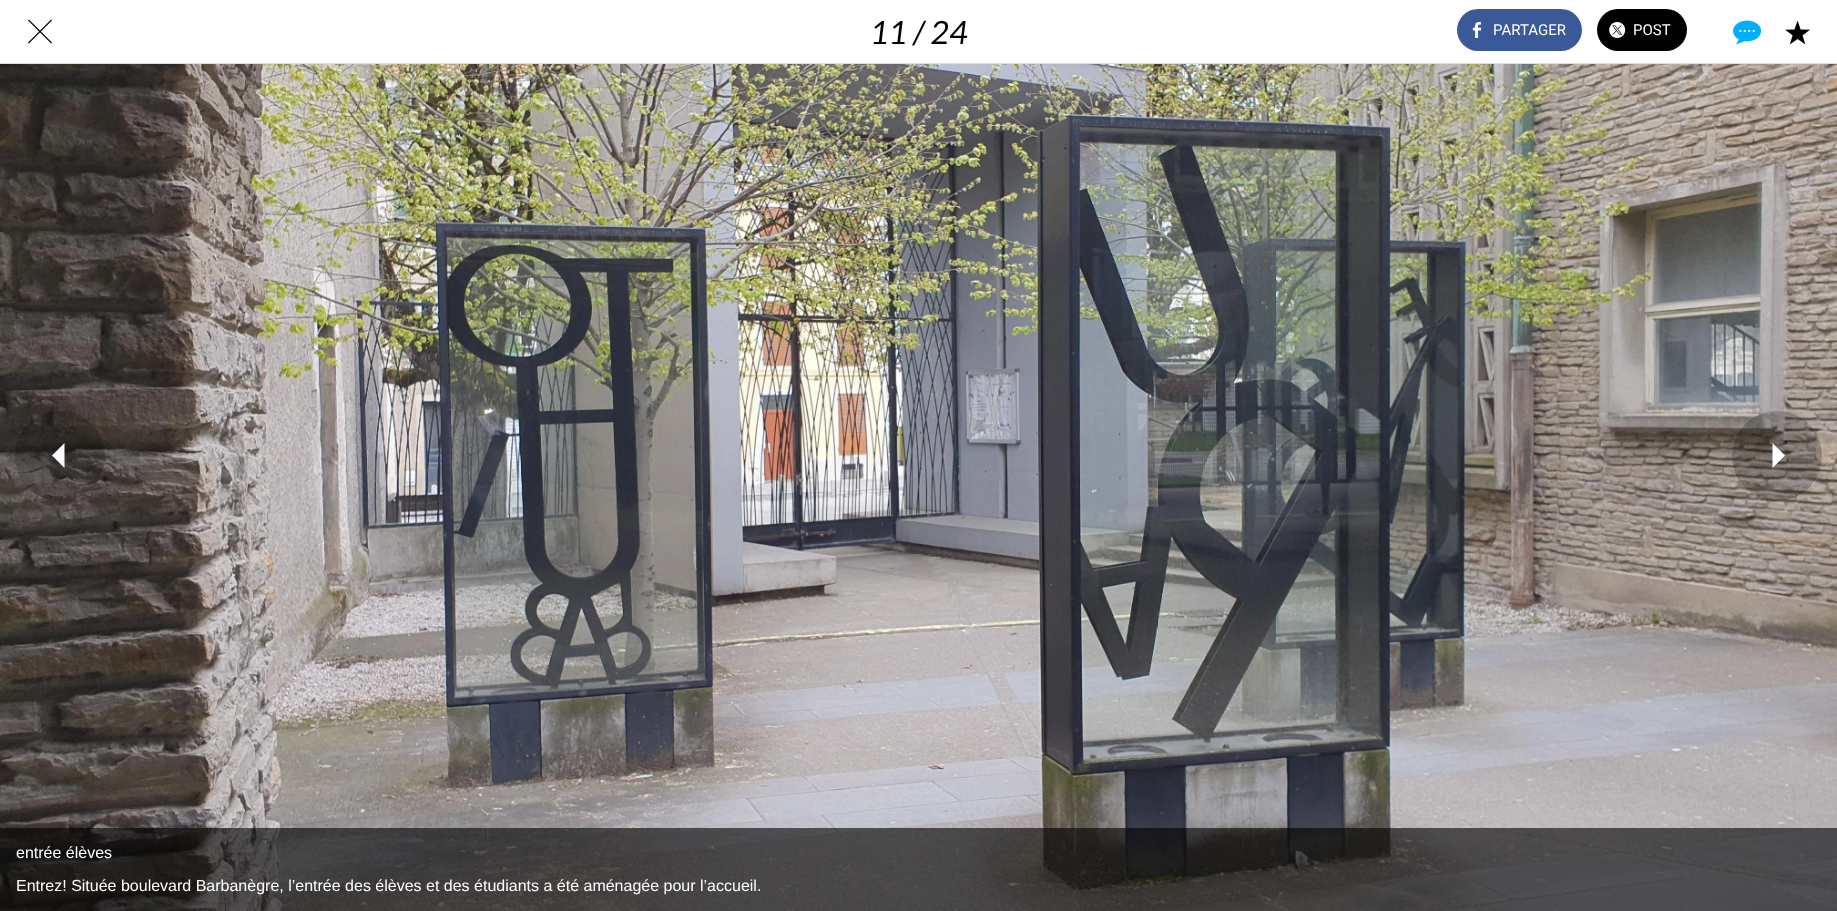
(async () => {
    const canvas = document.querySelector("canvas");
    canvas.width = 1837;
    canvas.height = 911;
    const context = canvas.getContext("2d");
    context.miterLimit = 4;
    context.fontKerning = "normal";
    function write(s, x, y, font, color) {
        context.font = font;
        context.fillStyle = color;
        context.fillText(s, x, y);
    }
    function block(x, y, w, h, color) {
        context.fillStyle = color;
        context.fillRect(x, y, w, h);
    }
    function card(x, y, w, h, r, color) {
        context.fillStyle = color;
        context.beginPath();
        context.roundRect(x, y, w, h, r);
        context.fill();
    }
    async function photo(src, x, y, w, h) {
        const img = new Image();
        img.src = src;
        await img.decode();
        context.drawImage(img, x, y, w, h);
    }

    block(0, 0, 1837, 911, "rgb(255, 255, 255)");
    block(0, 63, 1837, 1, "rgb(221, 221, 221)");
    await photo("media/1.png", 28, 19, 24, 25);
    write("11 / 24", 870, 44, "italic 32px Lato", "rgb(0, 0, 0)");
    card(1457, 9, 125, 42, 21, "rgb(59, 89, 153)");
    await photo("media/2.png", 1472, 22, 10, 16);
    write("PARTAGER", 1493, 35, "15px Roboto", "rgb(255, 255, 255)");
    card(1597, 9, 90, 42, 21, "rgb(0, 0, 0)");
    await photo("media/3.png", 1609, 22, 17, 16);
    write("POST", 1633, 35, "15px Roboto", "rgb(255, 255, 255)");
    await photo("media/4.png", 1733, 20, 29, 25);
    await photo("media/5.png", 1785, 20, 25, 25);
    await photo("media/6.png", 0, 64, 1837, 847);
    context.fillStyle = "rgba(0, 0, 0, 0.2)";
    context.beginPath();
    context.arc(60, 456, 45, 0, Math.PI * 2);
    context.fill();
    context.fillStyle = "rgb(255, 255, 255)";
    context.beginPath();
    context.moveTo(64.5, 443);
    context.lineTo(52, 455.5);
    context.lineTo(64.5, 468);
    context.closePath();
    context.fill();
    context.fillStyle = "rgba(0, 0, 0, 0.2)";
    context.beginPath();
    context.arc(1777, 456, 45, 0, Math.PI * 2);
    context.fill();
    context.fillStyle = "rgb(255, 255, 255)";
    context.beginPath();
    context.moveTo(1772.5, 468);
    context.lineTo(1785, 455.5);
    context.lineTo(1772.5, 443);
    context.closePath();
    context.fill();
    block(0, 828, 1837, 83, "rgba(0, 0, 0, 0.6)");
    write("entrée élèves", 16, 858, "16px Liberation Sans", "rgb(255, 255, 255)");
    write("Entrez! Située boulevard Barbanègre, l’entrée des élèves et des étudiants a été aménagée pour l’accueil.", 16, 891, "16px Liberation Sans", "rgb(255, 255, 255)");
})();
